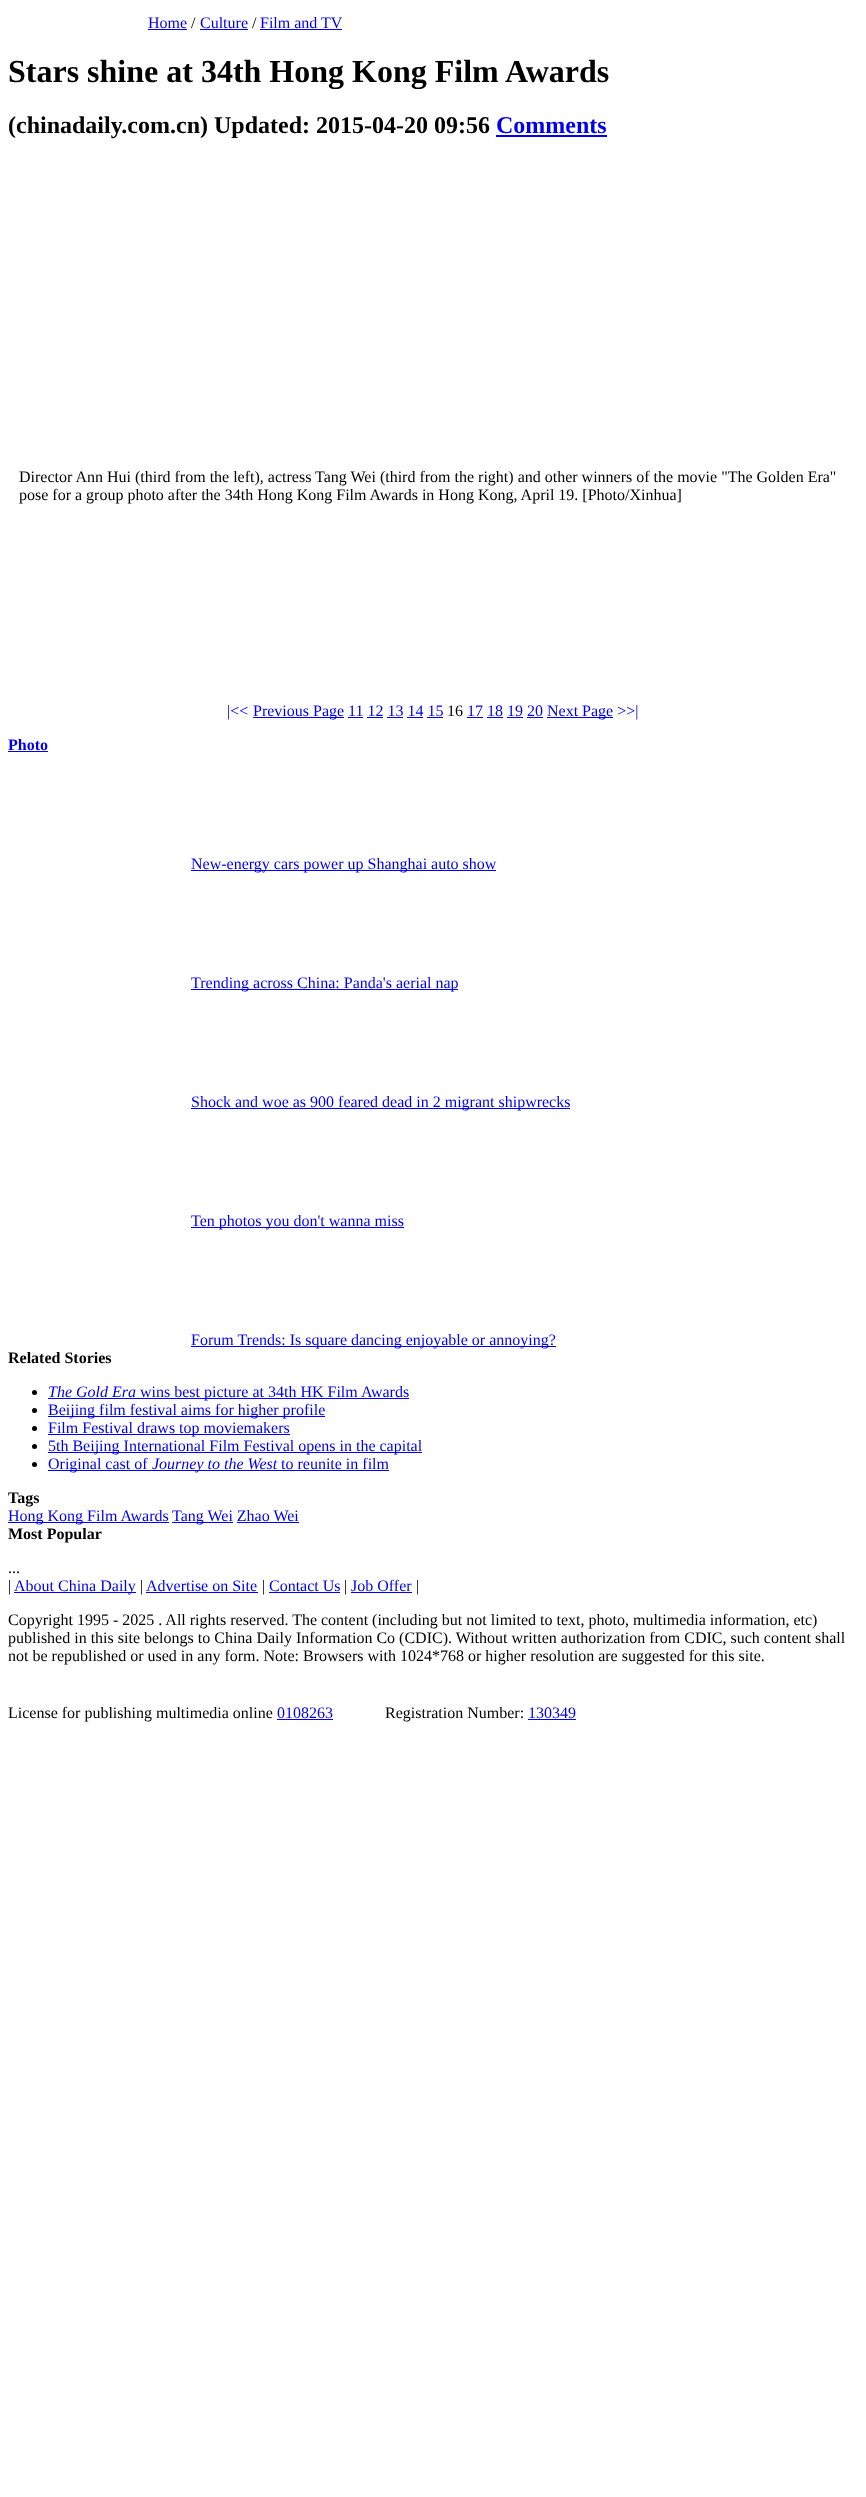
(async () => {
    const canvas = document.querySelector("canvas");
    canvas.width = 866;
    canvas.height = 2497;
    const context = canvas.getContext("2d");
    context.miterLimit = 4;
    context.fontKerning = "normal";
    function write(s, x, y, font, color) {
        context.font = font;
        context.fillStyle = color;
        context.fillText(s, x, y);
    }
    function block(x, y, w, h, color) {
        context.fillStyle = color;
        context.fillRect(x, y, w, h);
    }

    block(0, 0, 866, 2497, "rgb(255, 255, 255)");
    write("Home", 148, 28, "16px Liberation Serif", "rgb(0, 0, 238)");
    block(148, 29, 39, 1, "rgb(0, 0, 238)");
    write("/", 191, 28, "16px Liberation Serif", "rgb(0, 0, 0)");
    write("Culture", 200, 28, "16px Liberation Serif", "rgb(0, 0, 238)");
    block(200, 29, 48, 1, "rgb(0, 0, 238)");
    write("/", 252, 28, "16px Liberation Serif", "rgb(0, 0, 0)");
    write("Film and TV", 260, 28, "16px Liberation Serif", "rgb(0, 0, 238)");
    block(260, 29, 82, 1, "rgb(0, 0, 238)");
    write("Stars shine at 34th Hong Kong Film Awards", 8, 82, "bold 32px Liberation Serif", "rgb(0, 0, 0)");
    write("(chinadaily.com.cn) Updated: 2015-04-20 09:56", 8, 133, "bold 24px Liberation Serif", "rgb(0, 0, 0)");
    write("Comments", 496, 133, "bold 24px Liberation Serif", "rgb(0, 0, 238)");
    block(496, 135, 111, 2, "rgb(0, 0, 238)");
    write("Director Ann Hui (third from the left), actress Tang Wei (third from the right) and other winners of the movie \"The Golden Era\"", 19, 482, "16px Liberation Serif", "rgb(0, 0, 0)");
    write("pose for a group photo after the 34th Hong Kong Film Awards in Hong Kong, April 19. [Photo/Xinhua]", 19, 500, "16px Liberation Serif", "rgb(0, 0, 0)");
    write("|<<", 227, 716, "16px Liberation Serif", "rgb(0, 0, 238)");
    block(253, 717, 91, 1, "rgb(0, 0, 238)");
    write("Previous Page 11 12 13 14 15", 253, 716, "16px Liberation Serif", "rgb(0, 0, 238)");
    write("16", 447, 716, "16px Liberation Serif", "rgb(0, 0, 0)");
    write("17 18 19 20", 467, 716, "16px Liberation Serif", "rgb(0, 0, 238)");
    block(467, 717, 16, 1, "rgb(0, 0, 238)");
    block(547, 717, 66, 1, "rgb(0, 0, 238)");
    write("Next Page >>|", 547, 716, "16px Liberation Serif", "rgb(0, 0, 238)");
    block(348, 717, 15, 1, "rgb(0, 0, 238)");
    block(367, 717, 16, 1, "rgb(0, 0, 238)");
    block(387, 717, 16, 1, "rgb(0, 0, 238)");
    block(407, 717, 16, 1, "rgb(0, 0, 238)");
    block(427, 717, 16, 1, "rgb(0, 0, 238)");
    block(487, 717, 16, 1, "rgb(0, 0, 238)");
    block(507, 717, 16, 1, "rgb(0, 0, 238)");
    block(527, 717, 16, 1, "rgb(0, 0, 238)");
    write("Photo", 8, 750, "bold 16px Liberation Serif", "rgb(0, 0, 238)");
    block(8, 751, 40, 1, "rgb(0, 0, 238)");
    block(191, 870, 305, 1, "rgb(0, 0, 238)");
    write("New-energy cars power up Shanghai auto show", 191, 869, "16px Liberation Serif", "rgb(0, 0, 238)");
    block(191, 989, 267, 1, "rgb(0, 0, 238)");
    write("Trending across China: Panda's aerial nap", 191, 988, "16px Liberation Serif", "rgb(0, 0, 238)");
    block(191, 1108, 379, 1, "rgb(0, 0, 238)");
    write("Shock and woe as 900 feared dead in 2 migrant shipwrecks", 191, 1107, "16px Liberation Serif", "rgb(0, 0, 238)");
    block(191, 1227, 213, 1, "rgb(0, 0, 238)");
    write("Ten photos you don't wanna miss", 191, 1226, "16px Liberation Serif", "rgb(0, 0, 238)");
    block(191, 1346, 365, 1, "rgb(0, 0, 238)");
    write("Forum Trends: Is square dancing enjoyable or annoying?", 191, 1345, "16px Liberation Serif", "rgb(0, 0, 238)");
    write("Related Stories", 8, 1363, "bold 16px Liberation Serif", "rgb(0, 0, 0)");
    context.beginPath();
    context.arc(34.5, 1392.5, 2.5, 0, Math.PI * 2);
    context.fill();
    write("The Gold Era", 48, 1397, "italic 16px Liberation Serif", "rgb(0, 0, 238)");
    block(48, 1398, 361, 1, "rgb(0, 0, 238)");
    write("wins best picture at 34th HK Film Awards", 140, 1397, "16px Liberation Serif", "rgb(0, 0, 238)");
    context.fillStyle = "rgb(0, 0, 0)";
    context.beginPath();
    context.arc(34.5, 1410.5, 2.5, 0, Math.PI * 2);
    context.fill();
    block(48, 1416, 277, 1, "rgb(0, 0, 238)");
    write("Beijing film festival aims for higher profile", 48, 1415, "16px Liberation Serif", "rgb(0, 0, 238)");
    context.fillStyle = "rgb(0, 0, 0)";
    context.beginPath();
    context.arc(34.5, 1428.5, 2.5, 0, Math.PI * 2);
    context.fill();
    block(48, 1434, 242, 1, "rgb(0, 0, 238)");
    write("Film Festival draws top moviemakers", 48, 1433, "16px Liberation Serif", "rgb(0, 0, 238)");
    context.fillStyle = "rgb(0, 0, 0)";
    context.beginPath();
    context.arc(34.5, 1446.5, 2.5, 0, Math.PI * 2);
    context.fill();
    block(48, 1452, 374, 1, "rgb(0, 0, 238)");
    write("5th Beijing International Film Festival opens in the capital", 48, 1451, "16px Liberation Serif", "rgb(0, 0, 238)");
    context.fillStyle = "rgb(0, 0, 0)";
    context.beginPath();
    context.arc(34.5, 1464.5, 2.5, 0, Math.PI * 2);
    context.fill();
    block(48, 1470, 341, 1, "rgb(0, 0, 238)");
    write("Original cast of", 48, 1469, "16px Liberation Serif", "rgb(0, 0, 238)");
    write("Journey to the West", 152, 1469, "italic 16px Liberation Serif", "rgb(0, 0, 238)");
    write("to reunite in film", 281, 1469, "16px Liberation Serif", "rgb(0, 0, 238)");
    write("Tags", 8, 1503, "bold 16px Liberation Serif", "rgb(0, 0, 0)");
    block(8, 1522, 161, 1, "rgb(0, 0, 238)");
    write("Hong Kong Film Awards", 8, 1521, "16px Liberation Serif", "rgb(0, 0, 238)");
    block(172, 1522, 61, 1, "rgb(0, 0, 238)");
    write("Tang Wei Zhao Wei", 172, 1521, "16px Liberation Serif", "rgb(0, 0, 238)");
    block(237, 1522, 62, 1, "rgb(0, 0, 238)");
    write("Most Popular", 8, 1539, "bold 16px Liberation Serif", "rgb(0, 0, 0)");
    write("...", 8, 1573, "16px Liberation Serif", "rgb(0, 0, 0)");
    write("|", 8, 1591, "16px Liberation Serif", "rgb(0, 0, 0)");
    block(14, 1592, 122, 1, "rgb(0, 0, 238)");
    write("About China Daily", 14, 1591, "16px Liberation Serif", "rgb(0, 0, 238)");
    write("|", 140, 1591, "16px Liberation Serif", "rgb(0, 0, 0)");
    write("Advertise on Site", 146, 1591, "16px Liberation Serif", "rgb(0, 0, 238)");
    block(146, 1592, 112, 1, "rgb(0, 0, 238)");
    write("|", 262, 1591, "16px Liberation Serif", "rgb(0, 0, 0)");
    write("Contact Us", 269, 1591, "16px Liberation Serif", "rgb(0, 0, 238)");
    block(269, 1592, 71, 1, "rgb(0, 0, 238)");
    write("|", 344, 1591, "16px Liberation Serif", "rgb(0, 0, 0)");
    write("Job Offer", 351, 1591, "16px Liberation Serif", "rgb(0, 0, 238)");
    block(351, 1592, 61, 1, "rgb(0, 0, 238)");
    write("|", 416, 1591, "16px Liberation Serif", "rgb(0, 0, 0)");
    write("Copyright 1995 - 2025 . All rights reserved. The content (including but not limited to text, photo, multimedia information, etc)", 8, 1625, "16px Liberation Serif", "rgb(0, 0, 0)");
    write("published in this site belongs to China Daily Information Co (CDIC). Without written authorization from CDIC, such content shall", 8, 1643, "16px Liberation Serif", "rgb(0, 0, 0)");
    write("not be republished or used in any form. Note: Browsers with 1024*768 or higher resolution are suggested for this site.", 8, 1661, "16px Liberation Serif", "rgb(0, 0, 0)");
    write("License for publishing multimedia online", 8, 1718, "16px Liberation Serif", "rgb(0, 0, 0)");
    write("0108263", 277, 1718, "16px Liberation Serif", "rgb(0, 0, 238)");
    block(277, 1719, 56, 1, "rgb(0, 0, 238)");
    write("Registration Number:", 385, 1718, "16px Liberation Serif", "rgb(0, 0, 0)");
    write("130349", 528, 1718, "16px Liberation Serif", "rgb(0, 0, 238)");
    block(528, 1719, 48, 1, "rgb(0, 0, 238)");
})();
